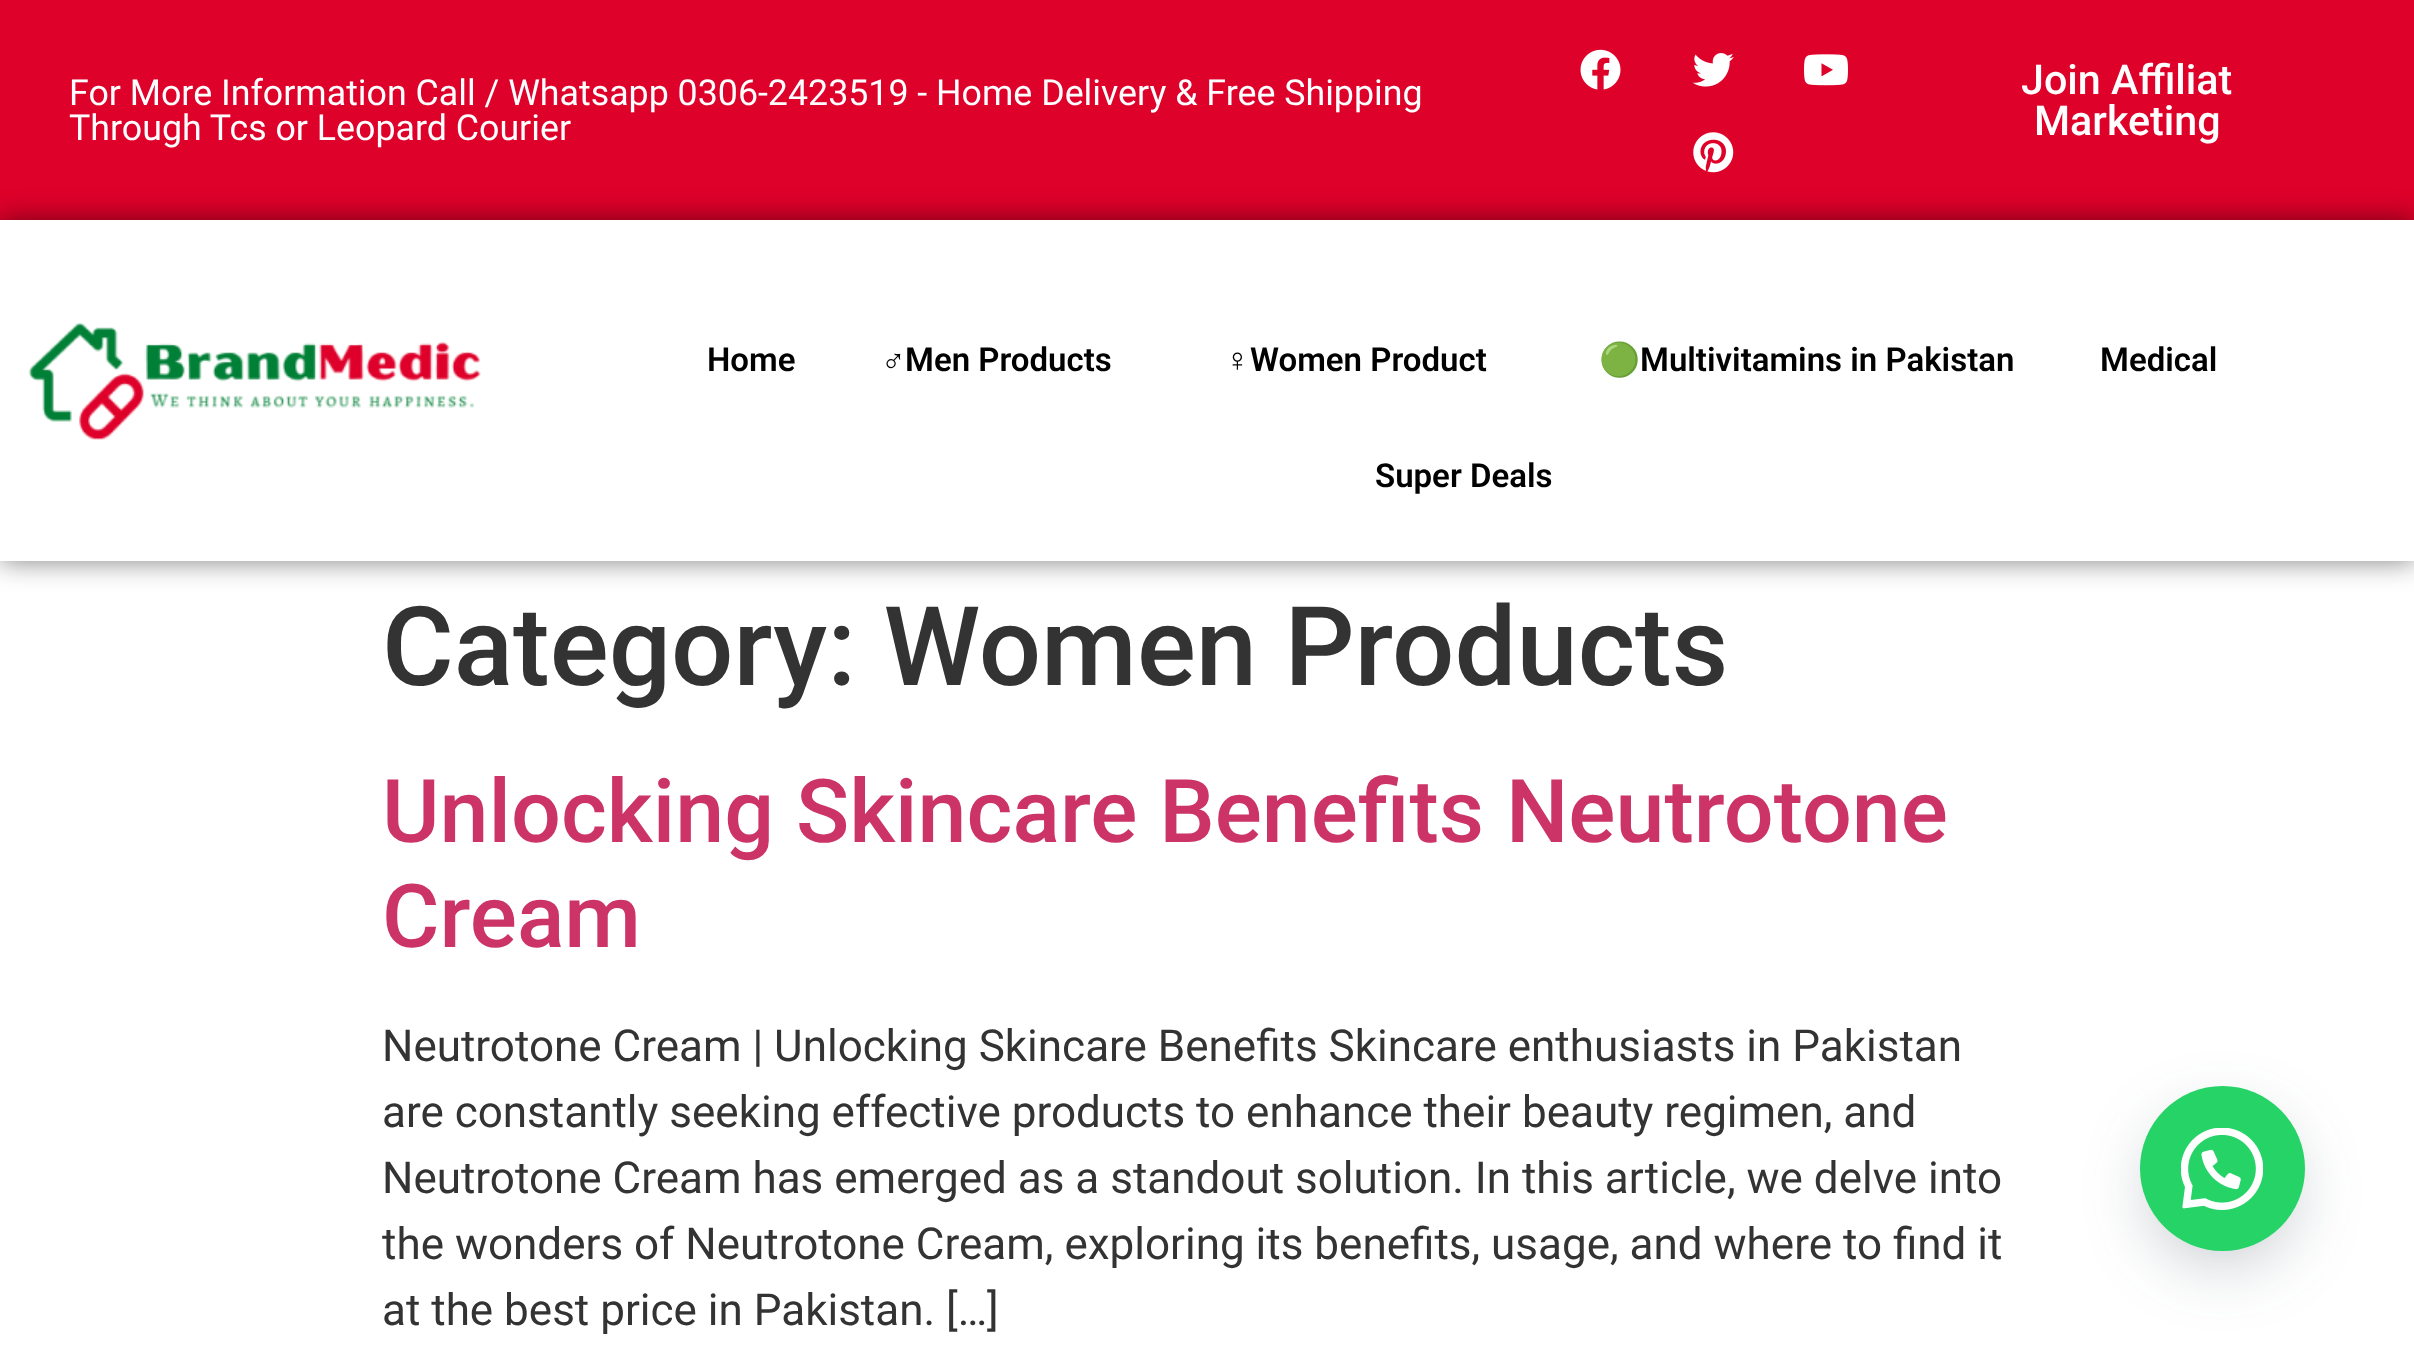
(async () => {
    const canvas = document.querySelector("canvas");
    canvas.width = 2414;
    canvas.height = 1359;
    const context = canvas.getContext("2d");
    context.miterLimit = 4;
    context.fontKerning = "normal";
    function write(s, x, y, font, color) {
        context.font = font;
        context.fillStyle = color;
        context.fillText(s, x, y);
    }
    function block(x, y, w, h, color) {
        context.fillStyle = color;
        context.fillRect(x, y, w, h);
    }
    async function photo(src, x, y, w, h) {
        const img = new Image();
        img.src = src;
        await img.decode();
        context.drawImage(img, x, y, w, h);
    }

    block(0, 0, 2414, 1359, "rgb(255, 255, 255)");
    block(0, 0, 2414, 220, "rgb(222, 1, 42)");
    write("For More Information Call / Whatsapp 0306-2423519 - Home Delivery & Free Shipping", 69, 105, "35.75px Roboto", "rgb(255, 255, 255)");
    write("Through Tcs or Leopard Courier", 69, 140, "35.75px Roboto", "rgb(255, 255, 255)");
    await photo("media/1.png", 1580, 49, 41, 41);
    await photo("media/2.png", 1692, 53, 42, 34);
    await photo("media/3.png", 1804, 54, 44, 32);
    await photo("media/4.png", 1693, 132, 41, 41);
    write("Join Affiliat", 2021, 94, "500 41.25px Roboto", "rgb(255, 255, 255)");
    write("Marketing", 2034, 135, "500 41.25px Roboto", "rgb(255, 255, 255)");
    context.save();
    context.beginPath();
    context.moveTo(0, 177);
    context.lineTo(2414, 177);
    context.lineTo(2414, 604);
    context.lineTo(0, 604);
    context.closePath();
    context.moveTo(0, 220);
    context.lineTo(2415, 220);
    context.lineTo(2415, 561);
    context.lineTo(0, 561);
    context.closePath();
    context.clip("evenodd");
    context.fillStyle = "rgba(0, 0, 0, 0.5)";
    context.filter = "blur(14px)";
    context.beginPath();
    context.rect(0, 220, 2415, 341);
    context.fill();
    context.filter = "none";
    context.restore();
    await photo("media/5.png", 28, 323, 453, 117);
    write("Home", 707, 371, "600 33px Roboto", "rgb(1, 1, 1)");
    write("♂", 881, 371, "bold 33px Liberation Sans", "rgb(1, 1, 1)");
    write("Men Products", 905, 371, "600 33px Roboto", "rgb(1, 1, 1)");
    write("♀", 1225, 371, "bold 33px Liberation Sans", "rgb(1, 1, 1)");
    write("Women Product", 1250, 371, "600 33px Roboto", "rgb(1, 1, 1)");
    write("🟢", 1599, 371, "bold 33px Noto Color Emoji", "rgb(1, 1, 1)");
    write("Multivitamins in Pakistan", 1640, 371, "600 33px Roboto", "rgb(1, 1, 1)");
    write("Medical", 2100, 371, "600 33px Roboto", "rgb(1, 1, 1)");
    write("Super Deals", 1375, 487, "600 33px Roboto", "rgb(1, 1, 1)");
    write("Category: Women Products", 382, 685, "500 110px Roboto", "rgb(51, 51, 51)");
    write("Unlocking Skincare Benefits Neutrotone", 382, 842, "500 88px Roboto", "rgb(204, 51, 102)");
    write("Cream", 382, 947, "500 88px Roboto", "rgb(204, 51, 102)");
    write("Neutrotone Cream | Unlocking Skincare Benefits Skincare enthusiasts in Pakistan", 382, 1061, "44px Roboto", "rgb(51, 51, 51)");
    write("are constantly seeking effective products to enhance their beauty regimen, and", 382, 1127, "44px Roboto", "rgb(51, 51, 51)");
    write("Neutrotone Cream has emerged as a standout solution. In this article, we delve into", 382, 1193, "44px Roboto", "rgb(51, 51, 51)");
    write("the wonders of Neutrotone Cream, exploring its benefits, usage, and where to find it", 382, 1259, "44px Roboto", "rgb(51, 51, 51)");
    write("at the best price in Pakistan. […]", 382, 1325, "44px Roboto", "rgb(51, 51, 51)");
    context.fillStyle = "rgba(45, 62, 79, 0.3)";
    context.filter = "blur(34.5px)";
    context.beginPath();
    context.roundRect(2153, 1122, 138, 138, 69);
    context.fill();
    context.filter = "none";
    context.fillStyle = "rgb(37, 211, 102)";
    context.beginPath();
    context.arc(2222.5, 1168.5, 82.5, 0, Math.PI * 2);
    context.fill();
    await photo("media/6.png", 2181, 1128, 82, 82);
})();
